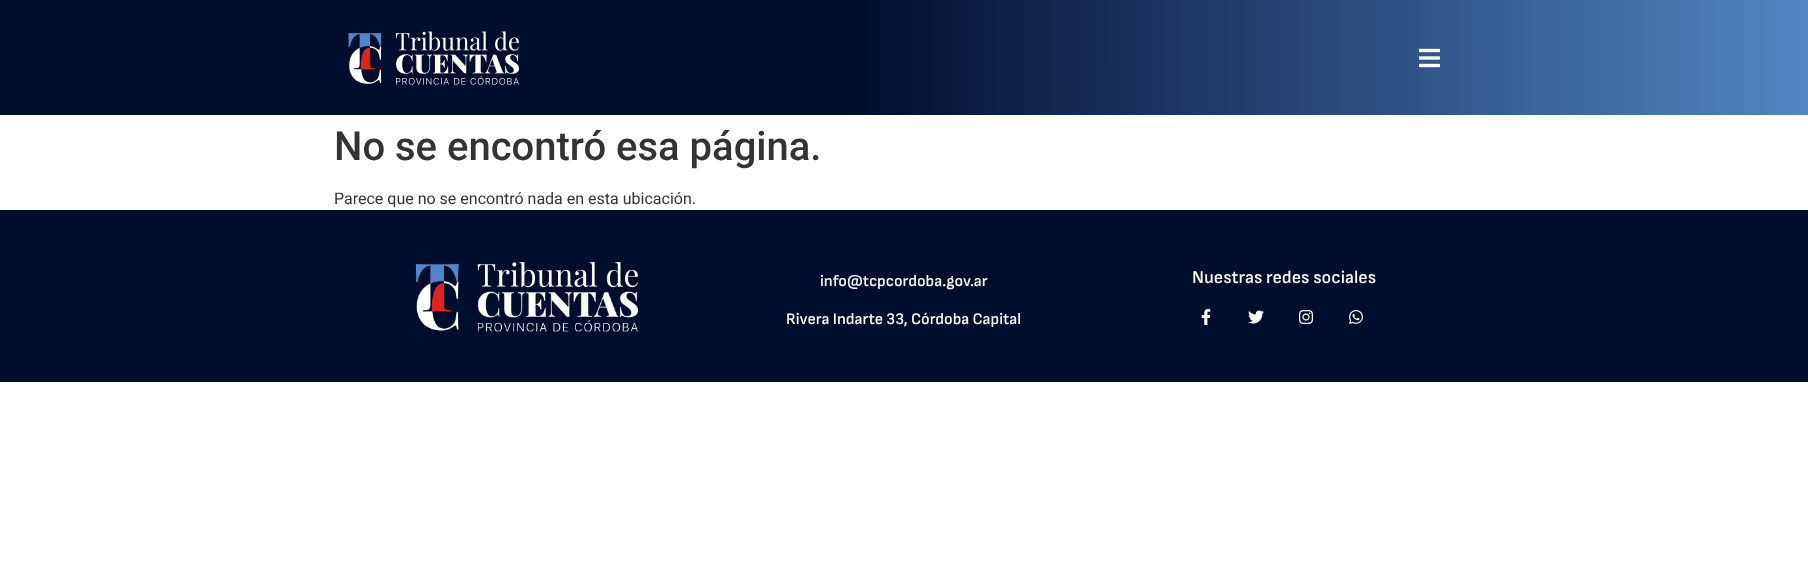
(async () => {
    const canvas = document.querySelector("canvas");
    canvas.width = 1808;
    canvas.height = 573;
    const context = canvas.getContext("2d");
    context.miterLimit = 4;
    context.fontKerning = "normal";
    function write(s, x, y, font, color) {
        context.font = font;
        context.fillStyle = color;
        context.fillText(s, x, y);
    }
    function block(x, y, w, h, color) {
        context.fillStyle = color;
        context.fillRect(x, y, w, h);
    }
    async function photo(src, x, y, w, h) {
        const img = new Image();
        img.src = src;
        await img.decode();
        context.drawImage(img, x, y, w, h);
    }
    let gradient;

    block(0, 0, 1808, 573, "rgb(255, 255, 255)");
    gradient = context.createLinearGradient(0, 58, 1808, 57);
    gradient.addColorStop(0.47, "rgb(0, 13, 46)");
    gradient.addColorStop(1, "rgb(82, 134, 197)");
    context.fillStyle = gradient;
    context.fillRect(0, 0, 1808, 115);
    await photo("media/1.png", 348, 31, 171, 54);
    await photo("media/2.png", 1419, 48, 21, 20);
    write("No se encontró esa página.", 334, 160, "500 40px Roboto", "rgb(51, 51, 51)");
    write("Parece que no se encontró nada en esta ubicación.", 334, 204, "16px Roboto", "rgb(51, 51, 51)");
    block(0, 210, 1808, 172, "rgb(0, 13, 46)");
    await photo("media/3.png", 415, 262, 223, 70);
    write("info@tcpcordoba.gov.ar", 820, 286, "600 16px Sofia Sans", "rgb(255, 255, 255)");
    write("Rivera Indarte 33, Córdoba Capital", 786, 324, "600 16px Sofia Sans", "rgb(255, 255, 255)");
    write("Nuestras redes sociales", 1192, 283, "600 18px Sofia Sans", "rgb(255, 255, 255)");
    await photo("media/4.png", 1201, 309, 10, 16);
    await photo("media/5.png", 1248, 310, 16, 14);
    await photo("media/6.png", 1299, 310, 14, 14);
    await photo("media/7.png", 1349, 310, 14, 14);
})();
